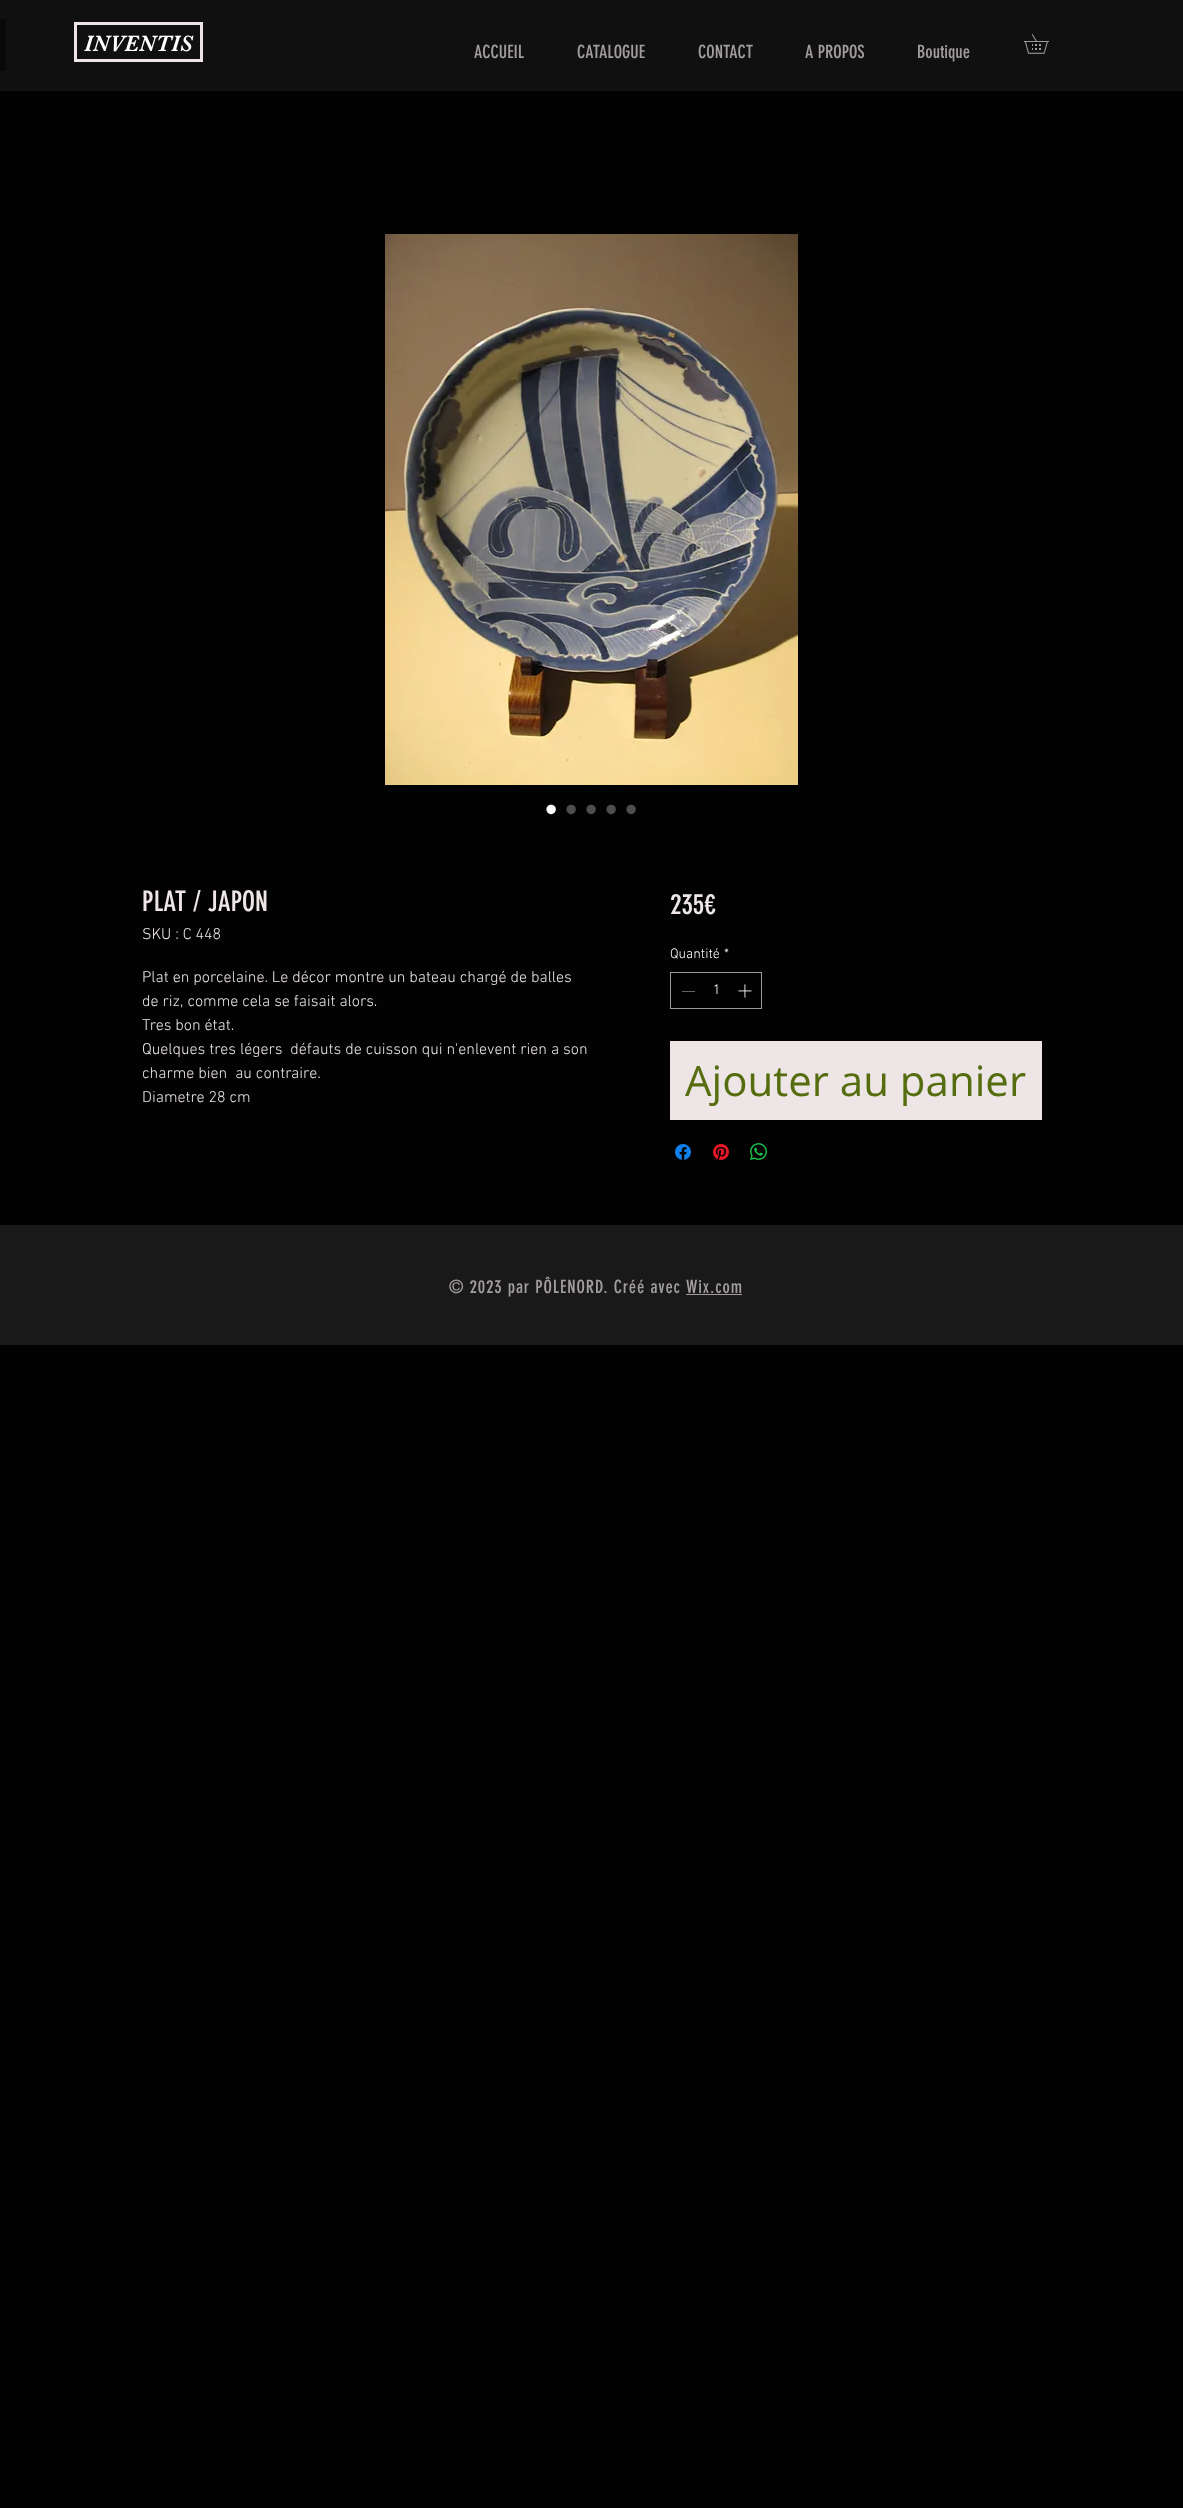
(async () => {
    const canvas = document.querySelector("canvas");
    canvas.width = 1183;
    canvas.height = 2508;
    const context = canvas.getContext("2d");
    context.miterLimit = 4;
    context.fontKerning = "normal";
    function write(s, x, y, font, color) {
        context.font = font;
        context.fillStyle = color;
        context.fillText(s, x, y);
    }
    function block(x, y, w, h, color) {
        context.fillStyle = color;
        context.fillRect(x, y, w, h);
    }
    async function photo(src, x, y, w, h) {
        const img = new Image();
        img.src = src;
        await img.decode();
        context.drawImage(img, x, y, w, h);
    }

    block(0, 0, 1183, 2508, "rgb(2, 2, 2)");
    block(0, 0, 1183, 91, "rgb(16, 16, 16)");
    block(0, 19, 6, 52, "rgb(9, 9, 9)");
    context.strokeStyle = "rgb(238, 230, 230)";
    context.lineWidth = 3;
    context.strokeRect(75.5, 23.5, 126, 37);
    write("INVENTIS", 84, 51, "23px 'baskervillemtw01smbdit'", "rgb(255, 255, 255)");
    write("ACCUEIL", 474, 58, "18px 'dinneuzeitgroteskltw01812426'", "rgb(162, 156, 156)");
    write("CATALOGUE", 577, 58, "18px 'dinneuzeitgroteskltw01812426'", "rgb(162, 156, 156)");
    write("CONTACT", 698, 58, "18px 'dinneuzeitgroteskltw01812426'", "rgb(162, 156, 156)");
    write("A PROPOS", 805, 58, "18px 'dinneuzeitgroteskltw01812426'", "rgb(162, 156, 156)");
    write("Boutique", 917, 58, "18px 'dinneuzeitgroteskltw01812426'", "rgb(162, 156, 156)");
    await photo("media/1.png", 1024, 34, 25, 20);
    await photo("media/2.png", 385, 234, 413, 551);
    write("•", 545, 821, "35px Liberation Sans", "rgb(255, 255, 255)");
    write("•", 565, 821, "35px Liberation Sans", "rgb(78, 78, 78)");
    write("•", 585, 821, "35px Liberation Sans", "rgb(78, 78, 78)");
    write("•", 605, 821, "35px Liberation Sans", "rgb(78, 78, 78)");
    write("•", 625, 821, "35px Liberation Sans", "rgb(78, 78, 78)");
    write("PLAT / JAPON", 142, 911, "28px 'dinneuzeitgroteskltw01812426'", "rgb(238, 230, 230)");
    write("SKU : C 448", 142, 939, "300 16px 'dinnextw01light'", "rgb(238, 230, 230)");
    write("Plat en porcelaine. Le décor montre un bateau chargé de balles", 142, 982, "300 16px 'dinnextw01light'", "rgb(238, 230, 230)");
    write("de riz, comme cela se faisait alors.", 142, 1006, "300 16px 'dinnextw01light'", "rgb(238, 230, 230)");
    write("Tres bon état.", 142, 1030, "300 16px 'dinnextw01light'", "rgb(238, 230, 230)");
    write("Quelques tres légers  défauts de cuisson qui n'enlevent rien a son", 142, 1054, "300 16px 'dinnextw01light'", "rgb(238, 230, 230)");
    write("charme bien  au contraire.", 142, 1078, "300 16px 'dinnextw01light'", "rgb(238, 230, 230)");
    write("Diametre 28 cm", 142, 1102, "300 16px 'dinnextw01light'", "rgb(238, 230, 230)");
    write("235€", 670, 914, "28px 'dinneuzeitgroteskltw01812426'", "rgb(238, 230, 230)");
    write("Quantité", 670, 958, "300 14px 'dinnextw01light'", "rgb(255, 255, 255)");
    write("*", 724, 958, "300 14px 'dinnextw01light'", "rgb(255, 255, 255)");
    context.strokeStyle = "rgb(154, 154, 154)";
    context.lineWidth = 1;
    context.strokeRect(670.5, 972.5, 91, 36);
    block(682, 991, 13, 1, "rgb(101, 101, 101)");
    write("1", 713, 994, "300 14px 'dinnextw01light'", "rgb(255, 255, 255)");
    await photo("media/3.png", 738, 984, 14, 14);
    block(670, 1041, 372, 79, "rgb(238, 230, 230)");
    write("Ajouter au panier", 685, 1096, "42px Open Sans", "rgb(85, 109, 14)");
    await photo("media/4.png", 675, 1144, 16, 16);
    await photo("media/5.png", 713, 1144, 16, 16);
    await photo("media/6.png", 750, 1143, 17, 17);
    block(0, 1225, 1183, 120, "rgb(26, 25, 25)");
    context.letterSpacing = "0.9px";
    write("© 2023 par PÔLENORD. Créé avec Wix.com", 449, 1293, "18px 'dinneuzeitgroteskltw01812426'", "rgb(162, 156, 156)");
    block(686, 1294, 56, 1, "rgb(162, 156, 156)");
})();
